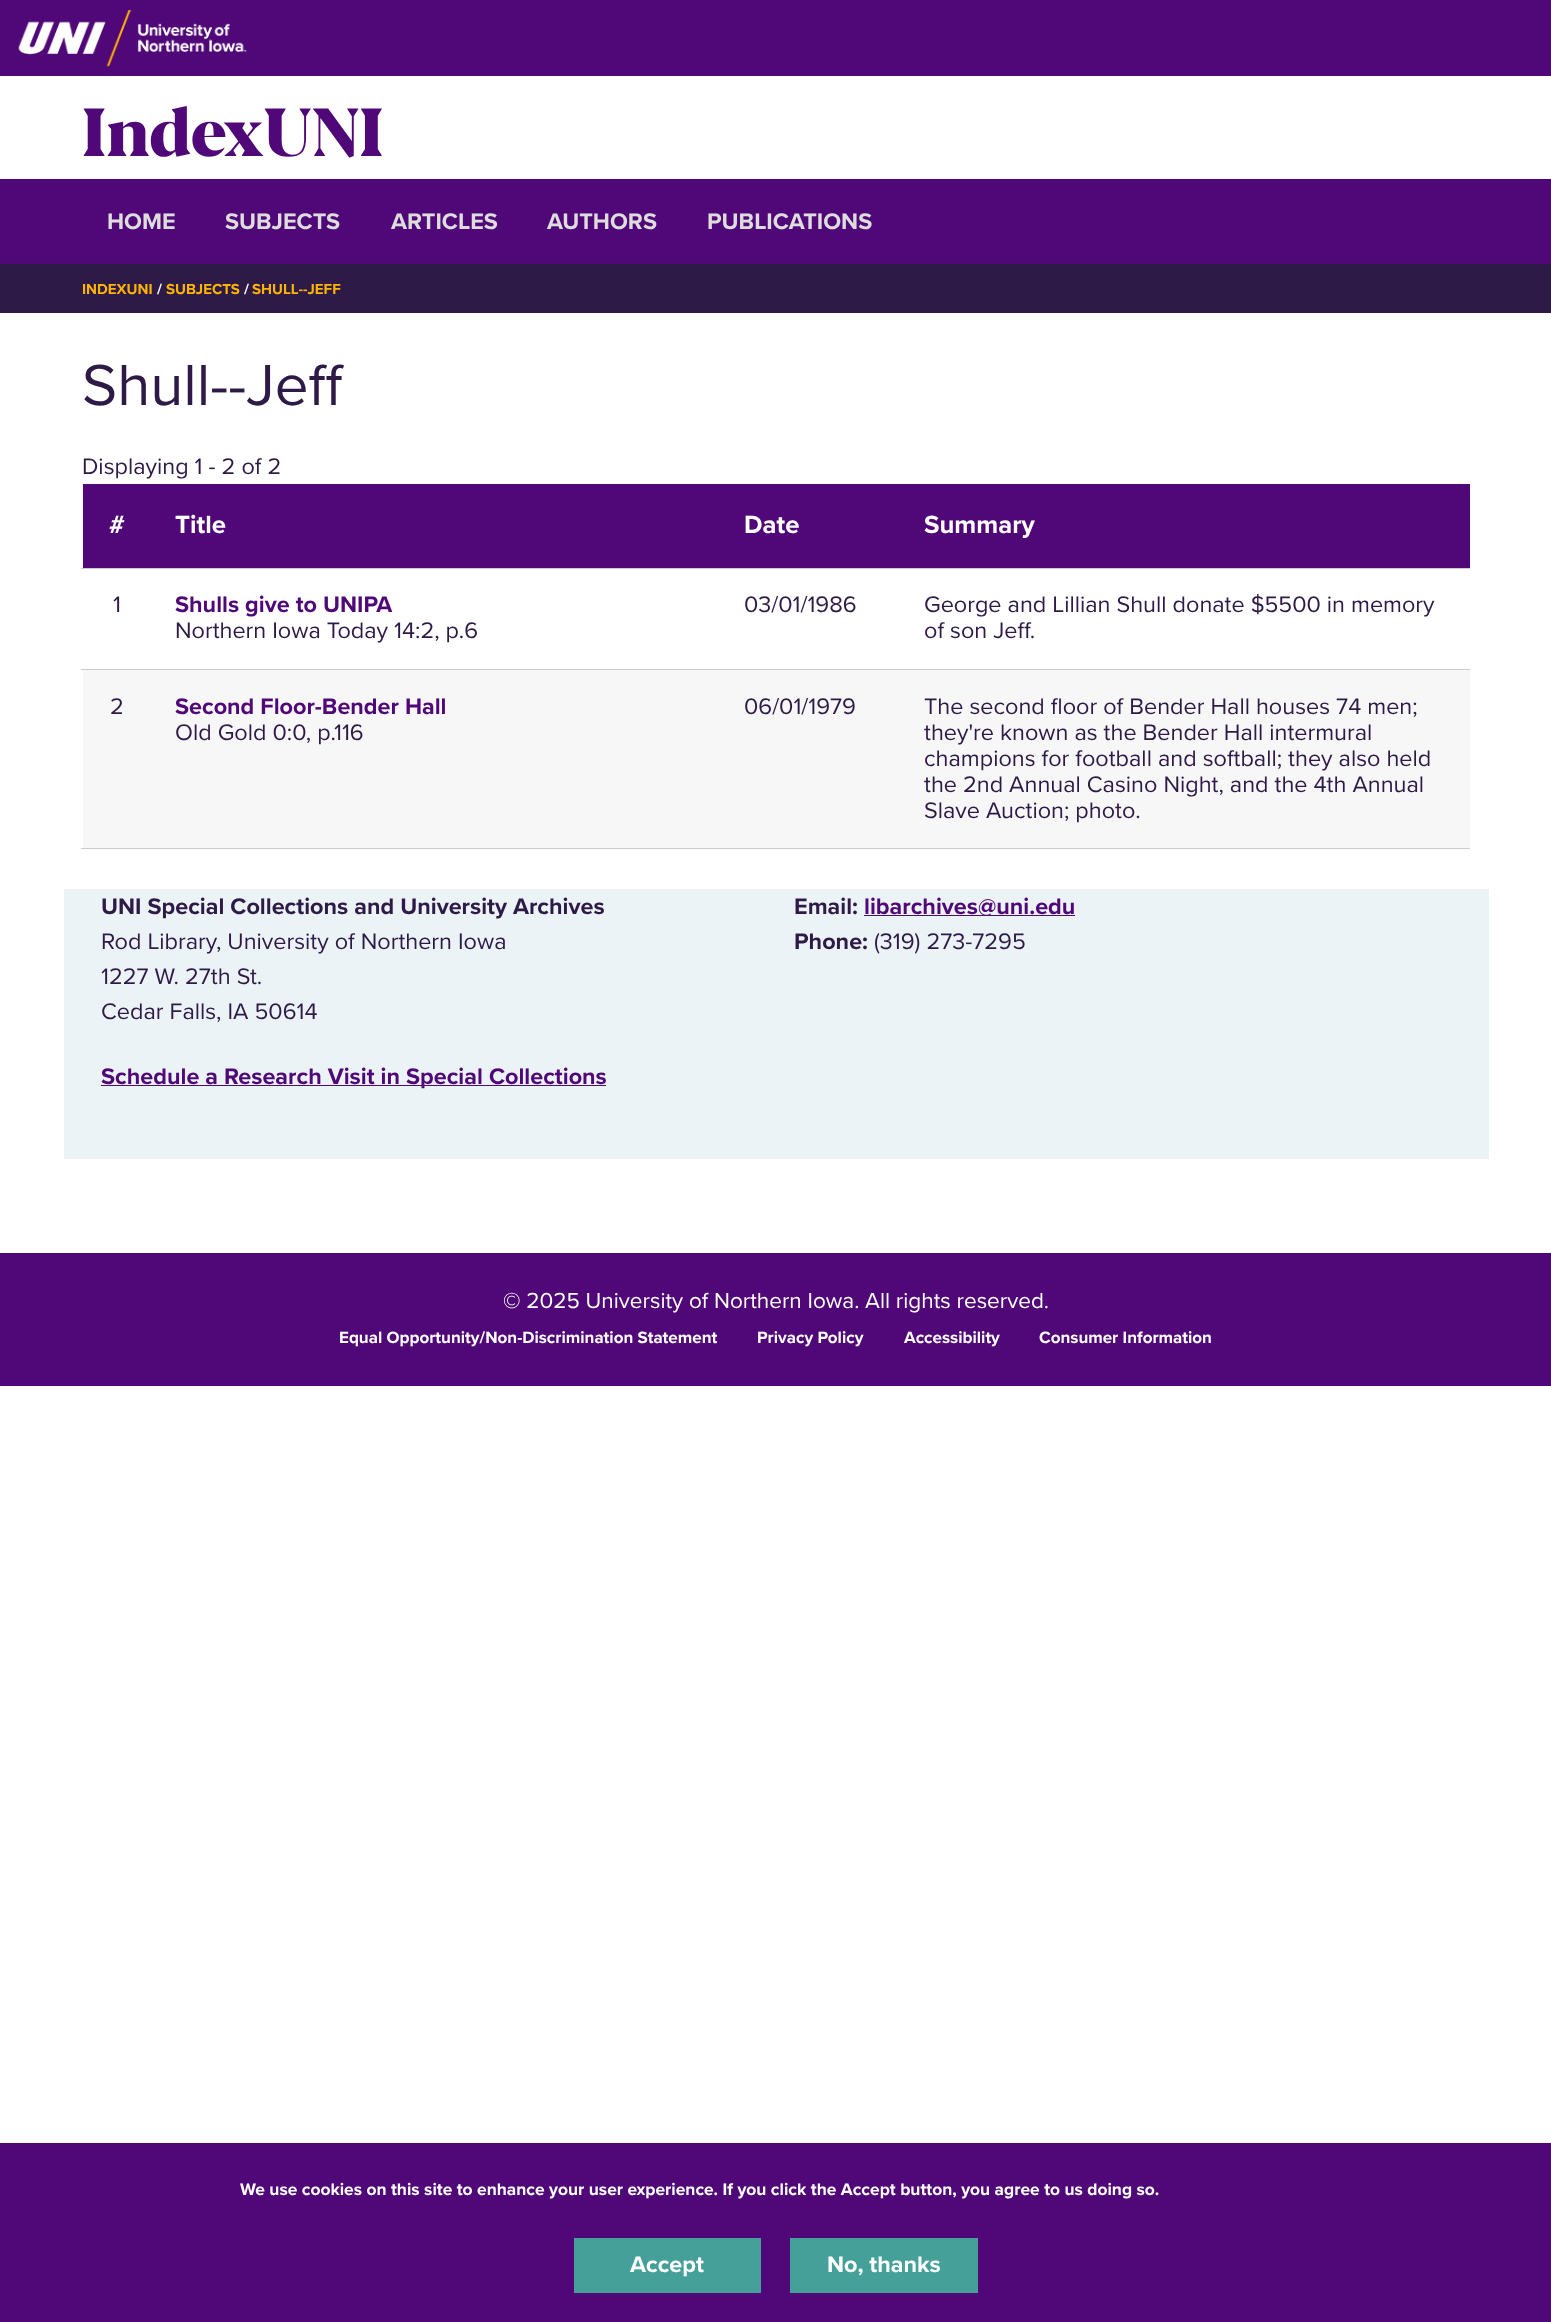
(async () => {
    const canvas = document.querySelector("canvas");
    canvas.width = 1551;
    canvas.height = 2322;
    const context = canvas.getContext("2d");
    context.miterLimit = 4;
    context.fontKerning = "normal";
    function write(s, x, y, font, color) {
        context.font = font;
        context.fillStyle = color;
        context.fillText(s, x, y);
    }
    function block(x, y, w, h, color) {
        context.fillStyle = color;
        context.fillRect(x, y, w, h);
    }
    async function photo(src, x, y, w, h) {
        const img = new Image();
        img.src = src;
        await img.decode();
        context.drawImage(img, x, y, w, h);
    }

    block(0, 0, 1551, 2322, "rgb(255, 255, 255)");
    block(0, 0, 1551, 76, "rgb(80, 7, 120)");
    await photo("media/1.png", 18, 10, 229, 57);
    write("IndexUNI", 82, 156, "900 67.5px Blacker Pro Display", "rgb(80, 7, 120)");
    block(0, 179, 1551, 85, "rgb(80, 7, 120)");
    write("HOME", 107, 229, "bold 23.4px Proxima Nova", "rgb(221, 221, 221)");
    write("SUBJECTS", 225, 229, "bold 23.4px Proxima Nova", "rgb(221, 221, 221)");
    write("ARTICLES", 391, 229, "bold 23.4px Proxima Nova", "rgb(221, 221, 221)");
    write("AUTHORS", 547, 229, "bold 23.4px Proxima Nova", "rgb(221, 221, 221)");
    write("PUBLICATIONS", 707, 229, "bold 23.4px Proxima Nova", "rgb(221, 221, 221)");
    block(0, 264, 1551, 49, "rgb(46, 26, 71)");
    write("INDEXUNI", 82, 294, "bold 15px Proxima Nova", "rgb(255, 181, 0)");
    write("/", 157, 294, "bold 15px Proxima Nova", "rgb(255, 255, 255)");
    write("SUBJECTS", 166, 294, "bold 15px Proxima Nova", "rgb(255, 181, 0)");
    write("/", 244, 294, "bold 15px Proxima Nova", "rgb(255, 255, 255)");
    write("SHULL--JEFF", 252, 294, "bold 15px Proxima Nova", "rgb(255, 181, 0)");
    write("Shull--Jeff", 82, 405, "60px Proxima Nova", "rgb(46, 26, 71)");
    write("Displaying 1 - 2 of 2", 82, 474, "23.4px Proxima Nova", "rgb(46, 26, 71)");
    block(81, 568, 1389, 1, "rgb(204, 204, 204)");
    block(83, 484, 1387, 84, "rgb(80, 7, 120)");
    write("#", 109, 533, "bold 25.75px Proxima Nova", "rgb(255, 255, 255)");
    write("Title", 175, 533, "bold 25.75px Proxima Nova", "rgb(255, 255, 255)");
    write("Date", 744, 533, "bold 25.75px Proxima Nova", "rgb(255, 255, 255)");
    write("Summary", 924, 533, "bold 25.75px Proxima Nova", "rgb(255, 255, 255)");
    block(81, 669, 1389, 1, "rgb(204, 204, 204)");
    write("1", 113, 612, "23.4px Proxima Nova", "rgb(46, 26, 71)");
    write("Shulls give to UNIPA", 175, 612, "bold 23.4px Proxima Nova", "rgb(80, 7, 120)");
    write("Northern Iowa Today 14:2, p.6", 175, 638, "23.4px Proxima Nova", "rgb(46, 26, 71)");
    write("03/01/1986", 744, 612, "23.4px Proxima Nova", "rgb(46, 26, 71)");
    write("George and Lillian Shull donate $5500 in memory", 924, 612, "23.4px Proxima Nova", "rgb(46, 26, 71)");
    write("of son Jeff.", 924, 638, "23.4px Proxima Nova", "rgb(46, 26, 71)");
    block(83, 670, 1387, 178, "rgb(248, 247, 248)");
    block(81, 848, 1389, 1, "rgb(204, 204, 204)");
    write("2", 110, 714, "23.4px Proxima Nova", "rgb(46, 26, 71)");
    write("Second Floor-Bender Hall", 175, 714, "bold 23.4px Proxima Nova", "rgb(80, 7, 120)");
    write("Old Gold 0:0, p.116", 175, 740, "23.4px Proxima Nova", "rgb(46, 26, 71)");
    write("06/01/1979", 744, 714, "23.4px Proxima Nova", "rgb(46, 26, 71)");
    write("The second floor of Bender Hall houses 74 men;", 924, 714, "23.4px Proxima Nova", "rgb(46, 26, 71)");
    write("they're known as the Bender Hall intermural", 924, 740, "23.4px Proxima Nova", "rgb(46, 26, 71)");
    write("champions for football and softball; they also held", 924, 766, "23.4px Proxima Nova", "rgb(46, 26, 71)");
    write("the 2nd Annual Casino Night, and the 4th Annual", 924, 792, "23.4px Proxima Nova", "rgb(46, 26, 71)");
    write("Slave Auction; photo.", 924, 818, "23.4px Proxima Nova", "rgb(46, 26, 71)");
    block(64, 889, 1425, 270, "rgb(236, 243, 247)");
    write("UNI Special Collections and University Archives", 101, 914, "bold 23.4px Proxima Nova", "rgb(46, 26, 71)");
    write("Rod Library, University of Northern Iowa", 101, 949, "23.4px Proxima Nova", "rgb(46, 26, 71)");
    write("1227 W. 27th St.", 101, 984, "23.4px Proxima Nova", "rgb(46, 26, 71)");
    write("Cedar Falls, IA 50614", 101, 1019, "23.4px Proxima Nova", "rgb(46, 26, 71)");
    write("E‌mail:", 794, 914, "bold 23.4px Proxima Nova", "rgb(46, 26, 71)");
    block(864, 915, 211, 1, "rgb(80, 7, 120)");
    write("libarchives@uni.edu", 864, 914, "bold 23.4px Proxima Nova", "rgb(80, 7, 120)");
    write("Phone:", 794, 949, "bold 23.4px Proxima Nova", "rgb(46, 26, 71)");
    write("(319) 273-7295", 874, 949, "23.4px Proxima Nova", "rgb(46, 26, 71)");
    block(101, 1085, 505, 1, "rgb(80, 7, 120)");
    write("‌Schedule a Research Visit in Special Collections", 101, 1084, "bold 23.4px Proxima Nova", "rgb(80, 7, 120)");
    block(0, 1253, 1551, 133, "rgb(80, 7, 120)");
    write("© 2025 University of Northern Iowa. All rights reserved.", 503, 1308, "22.5px Proxima Nova", "rgb(255, 255, 255)");
    write("Equal Opportunity/Non-Discrimination Statement", 339, 1343, "bold 17px Proxima Nova", "rgb(255, 255, 255)");
    write("Privacy Policy", 757, 1343, "bold 17px Proxima Nova", "rgb(255, 255, 255)");
    write("Accessibility", 904, 1343, "bold 17px Proxima Nova", "rgb(255, 255, 255)");
    write("Consumer Information", 1039, 1343, "bold 17px Proxima Nova", "rgb(255, 255, 255)");
    block(0, 2143, 1551, 179, "rgb(80, 7, 120)");
    write("We use cookies on this site to enhance your user experience. If you click the Accept button, you agree to us doing so.", 240, 2195, "bold 17.4px Proxima Nova", "rgb(255, 255, 255)");
    block(574, 2238, 187, 55, "rgb(70, 160, 154)");
    write("Accept", 630, 2272, "bold 23.4px Proxima Nova", "rgb(255, 255, 255)");
    block(790, 2238, 188, 55, "rgb(70, 160, 154)");
    write("No, thanks", 827, 2272, "bold 23.4px Proxima Nova", "rgb(255, 255, 255)");
})();
